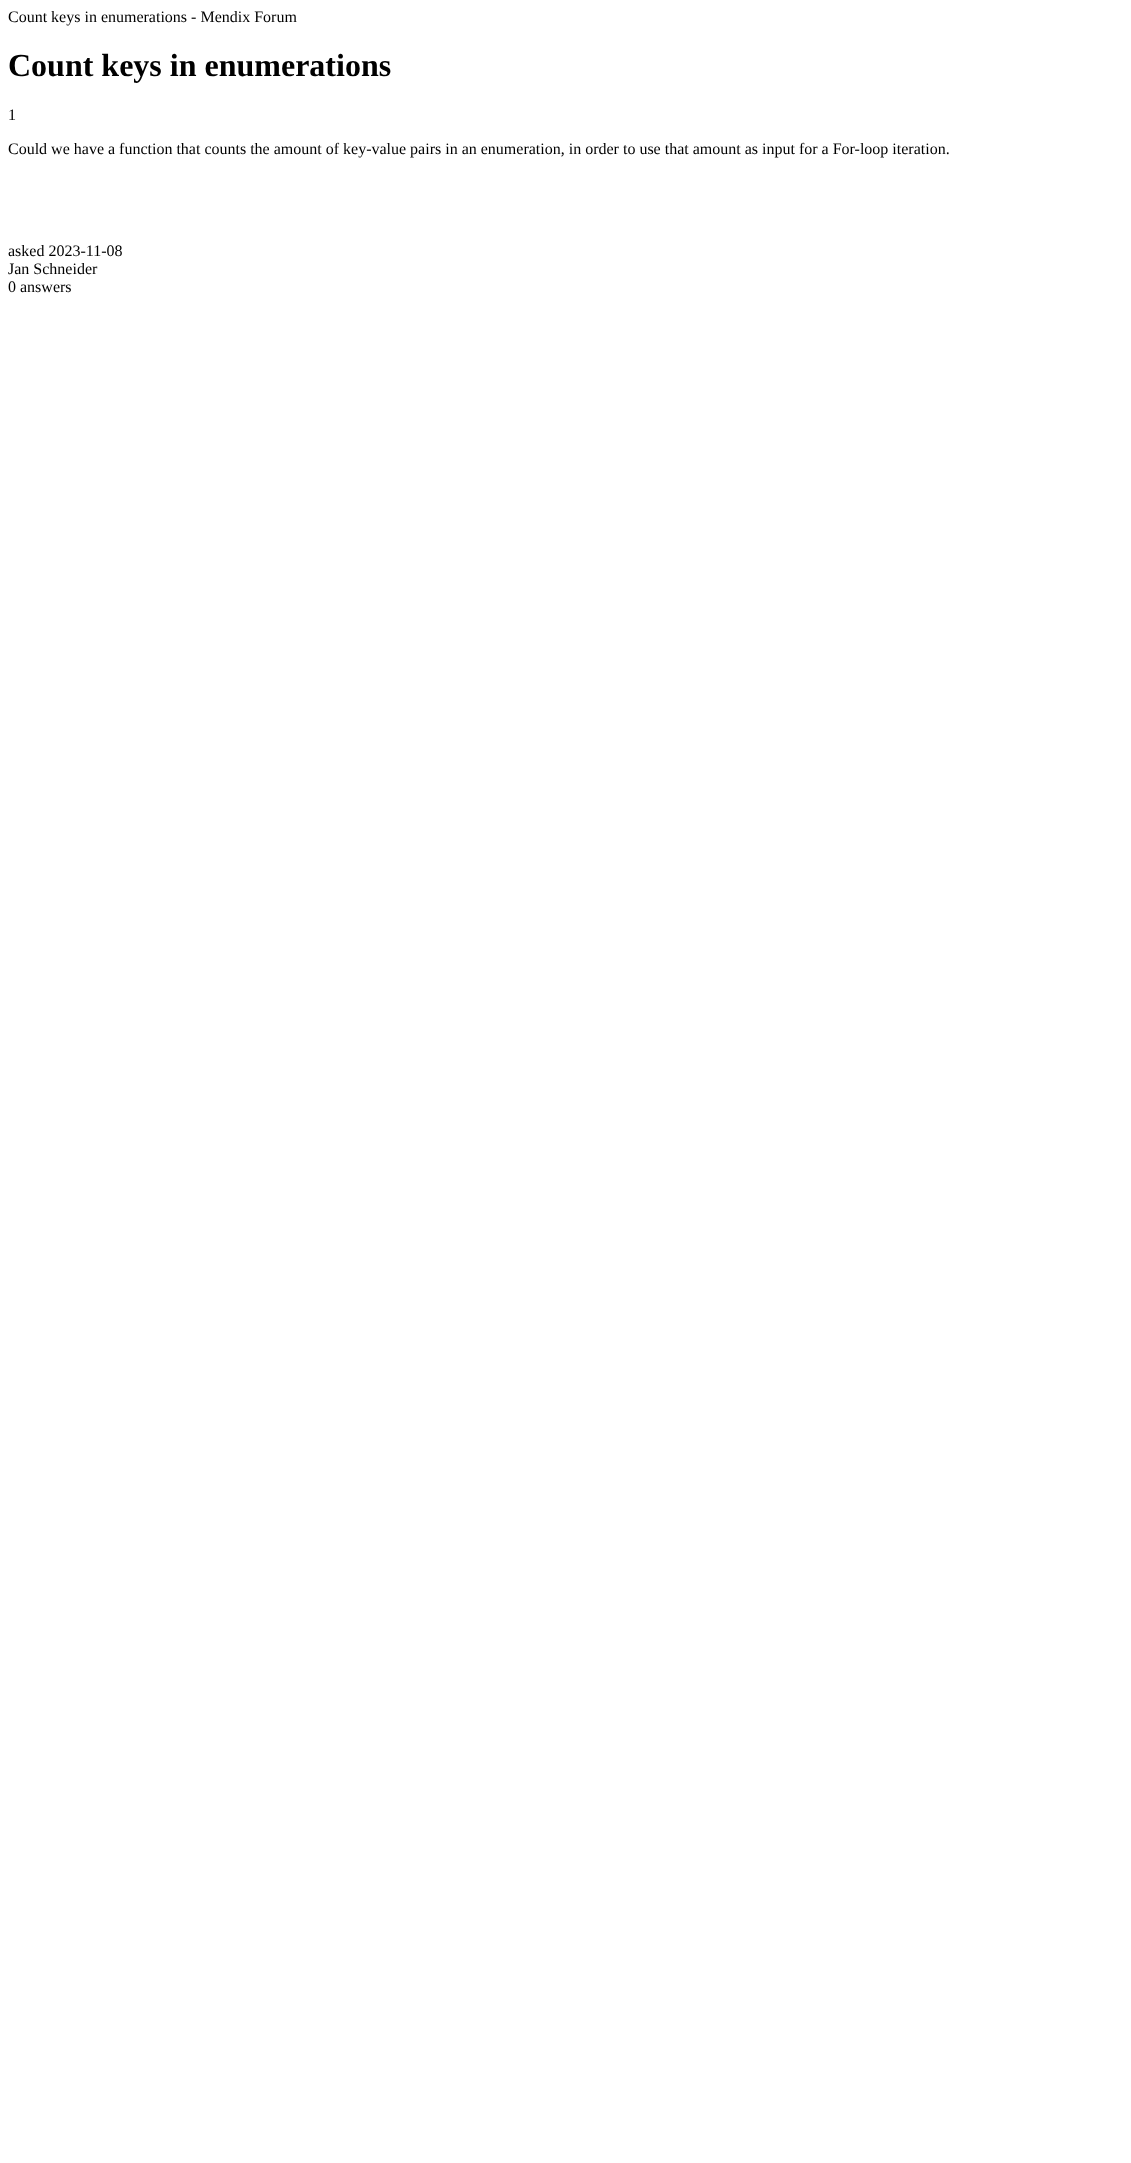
(async () => {
    const canvas = document.querySelector("canvas");
    canvas.width = 1131;
    canvas.height = 2163;
    const context = canvas.getContext("2d");
    context.miterLimit = 4;
    context.fontKerning = "normal";
    function write(s, x, y, font, color) {
        context.font = font;
        context.fillStyle = color;
        context.fillText(s, x, y);
    }
    function block(x, y, w, h, color) {
        context.fillStyle = color;
        context.fillRect(x, y, w, h);
    }

    block(0, 0, 1131, 2163, "rgb(255, 255, 255)");
    write("Count keys in enumerations - Mendix Forum", 8, 22, "16px Liberation Serif", "rgb(0, 0, 0)");
    write("Count keys in enumerations", 8, 76, "bold 32px Liberation Serif", "rgb(0, 0, 0)");
    write("1", 8, 120, "16px Liberation Serif", "rgb(0, 0, 0)");
    write("Could we have a function that counts the amount of key-value pairs in an enumeration, in order to use that amount as input for a For-loop iteration.", 8, 154, "16px Liberation Serif", "rgb(0, 0, 0)");
    write("asked 2023-11-08", 8, 256, "16px Liberation Serif", "rgb(0, 0, 0)");
    write("Jan Schneider", 8, 274, "16px Liberation Serif", "rgb(0, 0, 0)");
    write("0 answers", 8, 292, "16px Liberation Serif", "rgb(0, 0, 0)");
})();
